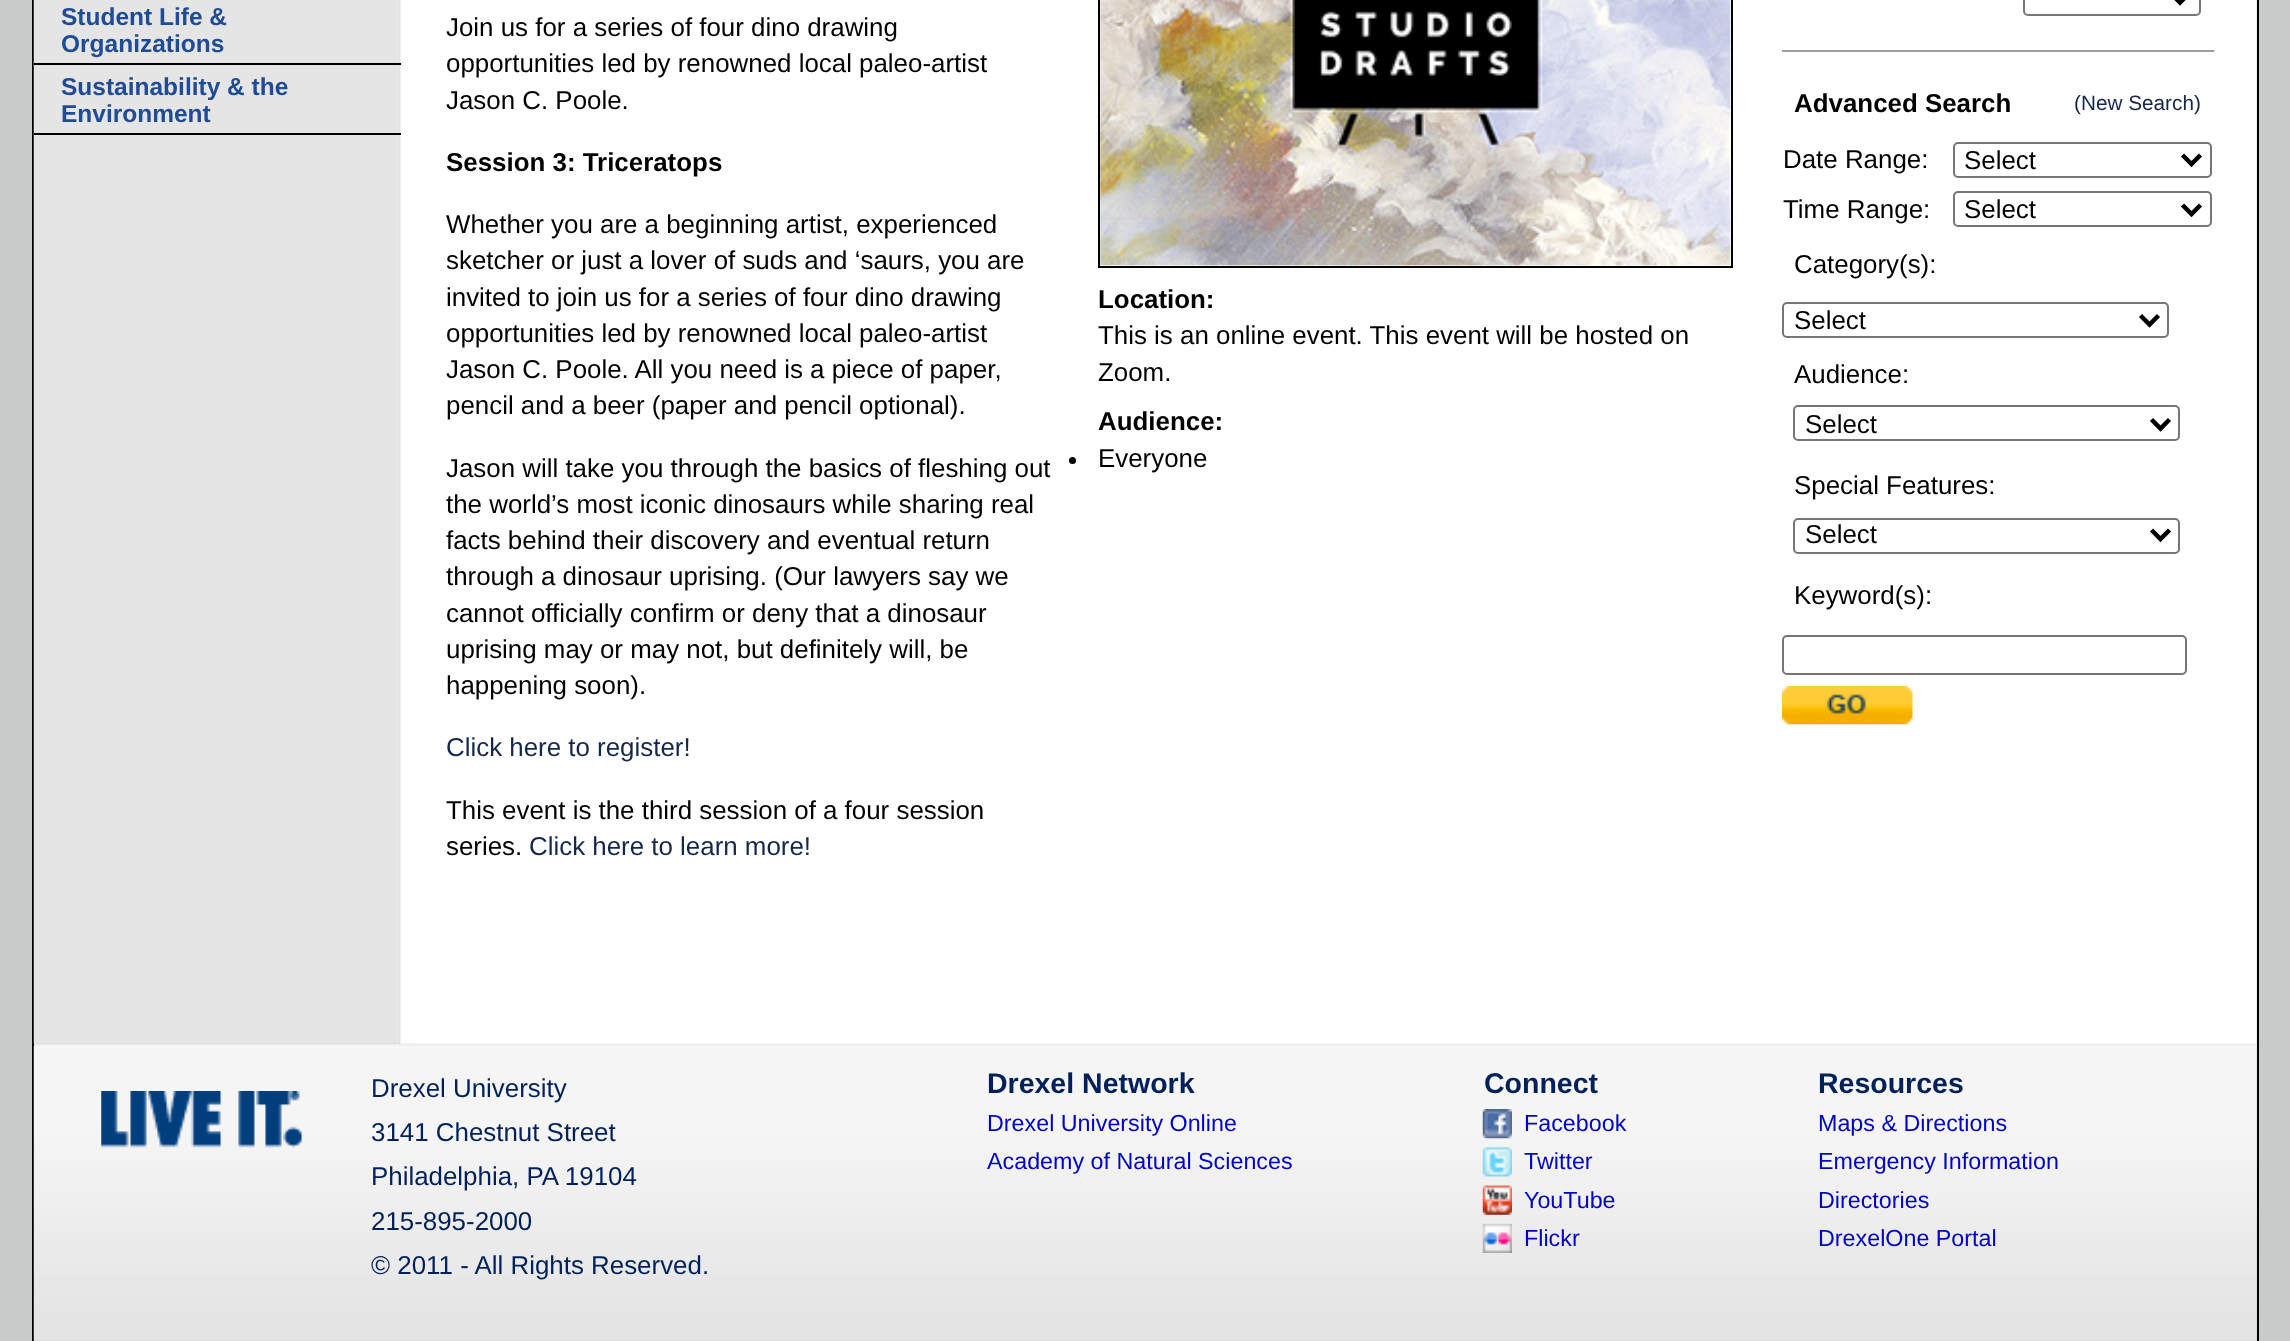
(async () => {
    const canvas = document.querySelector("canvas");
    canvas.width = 2290;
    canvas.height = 1341;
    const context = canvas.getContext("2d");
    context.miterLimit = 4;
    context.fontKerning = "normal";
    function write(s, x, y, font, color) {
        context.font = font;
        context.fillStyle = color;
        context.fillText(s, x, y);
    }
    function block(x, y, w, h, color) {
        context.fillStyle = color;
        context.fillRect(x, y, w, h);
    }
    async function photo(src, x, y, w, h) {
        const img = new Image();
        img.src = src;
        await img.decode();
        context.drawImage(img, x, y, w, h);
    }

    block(0, 0, 2290, 1341, "rgb(201, 202, 202)");
    block(2257, 0, 2, 1341, "rgb(0, 0, 0)");
    block(32, 0, 2, 1341, "rgb(0, 0, 0)");
    await photo("media/1.png", 33, 0, 2224, 1044);
    block(34, 63, 367, 2, "rgb(0, 0, 0)");
    write("Student Life &", 61, 25, "bold 24.5px Liberation Sans", "rgb(32, 76, 149)");
    write("Organizations", 61, 52, "bold 24.5px Liberation Sans", "rgb(32, 76, 149)");
    block(34, 133, 367, 2, "rgb(0, 0, 0)");
    write("Sustainability & the", 61, 95, "bold 24.5px Liberation Sans", "rgb(32, 76, 149)");
    write("Environment", 61, 122, "bold 24.5px Liberation Sans", "rgb(32, 76, 149)");
    write("Join us for a series of four dino drawing", 446, 36, "25.9px Liberation Sans", "rgb(0, 0, 0)");
    write("opportunities led by renowned local paleo-artist", 446, 72, "25.9px Liberation Sans", "rgb(0, 0, 0)");
    write("Jason C. Poole.", 446, 109, "25.9px Liberation Sans", "rgb(0, 0, 0)");
    write("Session 3: Triceratops", 446, 171, "bold 25.9px Liberation Sans", "rgb(0, 0, 0)");
    write("Whether you are a beginning artist, experienced", 446, 233, "25.9px Liberation Sans", "rgb(0, 0, 0)");
    write("sketcher or just a lover of suds and ‘saurs, you are", 446, 269, "25.9px Liberation Sans", "rgb(0, 0, 0)");
    write("invited to join us for a series of four dino drawing", 446, 306, "25.9px Liberation Sans", "rgb(0, 0, 0)");
    write("opportunities led by renowned local paleo-artist", 446, 342, "25.9px Liberation Sans", "rgb(0, 0, 0)");
    write("Jason C. Poole. All you need is a piece of paper,", 446, 378, "25.9px Liberation Sans", "rgb(0, 0, 0)");
    write("pencil and a beer (paper and pencil optional).", 446, 414, "25.9px Liberation Sans", "rgb(0, 0, 0)");
    write("Jason will take you through the basics of fleshing out", 446, 477, "25.9px Liberation Sans", "rgb(0, 0, 0)");
    write("the world’s most iconic dinosaurs while sharing real", 446, 513, "25.9px Liberation Sans", "rgb(0, 0, 0)");
    write("facts behind their discovery and eventual return", 446, 549, "25.9px Liberation Sans", "rgb(0, 0, 0)");
    write("through a dinosaur uprising. (Our lawyers say we", 446, 585, "25.9px Liberation Sans", "rgb(0, 0, 0)");
    write("cannot officially confirm or deny that a dinosaur", 446, 622, "25.9px Liberation Sans", "rgb(0, 0, 0)");
    write("uprising may or may not, but definitely will, be", 446, 658, "25.9px Liberation Sans", "rgb(0, 0, 0)");
    write("happening soon).", 446, 694, "25.9px Liberation Sans", "rgb(0, 0, 0)");
    write("Click here to register!", 446, 756, "25.9px Liberation Sans", "rgb(21, 39, 77)");
    write("This event is the third session of a four session", 446, 819, "25.9px Liberation Sans", "rgb(0, 0, 0)");
    write("series.", 446, 855, "25.9px Liberation Sans", "rgb(0, 0, 0)");
    write("Click here to learn more!", 529, 855, "25.9px Liberation Sans", "rgb(21, 39, 77)");
    context.strokeStyle = "rgb(0, 0, 0)";
    context.lineWidth = 2;
    context.strokeRect(1099, -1, 633, 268);
    await photo("media/2.png", 1100, 0, 631, 266);
    write("Location:", 1098, 308, "bold 25.9px Liberation Sans", "rgb(0, 0, 0)");
    write("This is an online event. This event will be hosted on", 1098, 344, "25.9px Liberation Sans", "rgb(0, 0, 0)");
    write("Zoom.", 1098, 381, "25.9px Liberation Sans", "rgb(0, 0, 0)");
    write("Audience:", 1098, 430, "bold 25.9px Liberation Sans", "rgb(0, 0, 0)");
    context.beginPath();
    context.arc(1072.5, 460.5, 3.5, 0, Math.PI * 2);
    context.fill();
    write("Everyone", 1098, 467, "25.9px Liberation Sans", "rgb(0, 0, 0)");
    context.beginPath();
    context.roundRect(2024, -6, 176, 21, 4);
    context.strokeStyle = "rgb(118, 118, 118)";
    context.stroke();
    context.beginPath();
    context.moveTo(2171, -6.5);
    context.lineTo(2180, 2.5);
    context.lineTo(2189, -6.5);
    context.strokeStyle = "rgb(0, 0, 0)";
    context.lineWidth = 4.5;
    context.stroke();
    block(1782, 50, 434, 2, "rgb(159, 159, 159)");
    block(2214, 50, 2, 2, "rgb(238, 238, 238)");
    write("Advanced Search", 1794, 112, "bold 25.9px Liberation Sans", "rgb(0, 0, 0)");
    write("(New Search)", 2074, 110, "20.75px Liberation Sans", "rgb(21, 39, 77)");
    write("Date Range:", 1783, 168, "25.9px Liberation Sans", "rgb(0, 0, 0)");
    context.beginPath();
    context.roundRect(1954, 143, 257, 34, 4);
    context.strokeStyle = "rgb(118, 118, 118)";
    context.lineWidth = 2;
    context.stroke();
    context.beginPath();
    context.moveTo(2182.5, 155);
    context.lineTo(2191.5, 164);
    context.lineTo(2200.5, 155);
    context.strokeStyle = "rgb(0, 0, 0)";
    context.lineWidth = 4.5;
    context.stroke();
    write("Select", 1964, 169, "25.9px Liberation Sans", "rgb(0, 0, 0)");
    write("Time Range:", 1783, 218, "25.9px Liberation Sans", "rgb(0, 0, 0)");
    context.beginPath();
    context.roundRect(1954, 192, 257, 34, 4);
    context.strokeStyle = "rgb(118, 118, 118)";
    context.lineWidth = 2;
    context.stroke();
    context.beginPath();
    context.moveTo(2182.5, 205);
    context.lineTo(2191.5, 214);
    context.lineTo(2200.5, 205);
    context.strokeStyle = "rgb(0, 0, 0)";
    context.lineWidth = 4.5;
    context.stroke();
    write("Select", 1964, 218, "25.9px Liberation Sans", "rgb(0, 0, 0)");
    write("Category(s):", 1794, 273, "25.9px Liberation Sans", "rgb(0, 0, 0)");
    context.beginPath();
    context.roundRect(1783, 303, 385, 34, 4);
    context.strokeStyle = "rgb(118, 118, 118)";
    context.lineWidth = 2;
    context.stroke();
    context.beginPath();
    context.moveTo(2140.5, 315.5);
    context.lineTo(2149.5, 324.5);
    context.lineTo(2158.5, 315.5);
    context.strokeStyle = "rgb(0, 0, 0)";
    context.lineWidth = 4.5;
    context.stroke();
    write("Select", 1794, 329, "25.9px Liberation Sans", "rgb(0, 0, 0)");
    write("Audience:", 1794, 383, "25.9px Liberation Sans", "rgb(0, 0, 0)");
    context.beginPath();
    context.roundRect(1794, 406, 385, 34, 4);
    context.strokeStyle = "rgb(118, 118, 118)";
    context.lineWidth = 2;
    context.stroke();
    context.beginPath();
    context.moveTo(2151.5, 419.5);
    context.lineTo(2160.5, 428.5);
    context.lineTo(2169.5, 419.5);
    context.strokeStyle = "rgb(0, 0, 0)";
    context.lineWidth = 4.5;
    context.stroke();
    write("Select", 1805, 433, "25.9px Liberation Sans", "rgb(0, 0, 0)");
    write("Special Features:", 1794, 494, "25.9px Liberation Sans", "rgb(0, 0, 0)");
    context.beginPath();
    context.roundRect(1794, 519, 385, 34, 4);
    context.strokeStyle = "rgb(118, 118, 118)";
    context.lineWidth = 2;
    context.stroke();
    context.beginPath();
    context.moveTo(2151.5, 530);
    context.lineTo(2160.5, 539);
    context.lineTo(2169.5, 530);
    context.strokeStyle = "rgb(0, 0, 0)";
    context.lineWidth = 4.5;
    context.stroke();
    write("Select", 1805, 543, "25.9px Liberation Sans", "rgb(0, 0, 0)");
    write("Keyword(s):", 1794, 604, "25.9px Liberation Sans", "rgb(0, 0, 0)");
    context.beginPath();
    context.roundRect(1783, 636, 403, 38, 4);
    context.strokeStyle = "rgb(118, 118, 118)";
    context.lineWidth = 2;
    context.stroke();
    await photo("media/3.png", 1782, 686, 131, 39);
    block(34, 1044, 2223, 2, "rgb(238, 238, 238)");
    await photo("media/4.png", 33, 1046, 2224, 295);
    await photo("media/5.png", 101, 1091, 202, 57);
    write("Drexel University", 371, 1097, "25.9px Liberation Sans", "rgb(0, 32, 91)");
    write("3141 Chestnut Street", 371, 1141, "25.9px Liberation Sans", "rgb(0, 32, 91)");
    write("Philadelphia, PA 19104", 371, 1185, "25.9px Liberation Sans", "rgb(0, 32, 91)");
    write("215-895-2000", 371, 1230, "25.9px Liberation Sans", "rgb(0, 32, 91)");
    write("© 2011 - All Rights Reserved.", 371, 1274, "25.9px Liberation Sans", "rgb(0, 32, 91)");
    write("Drexel Network", 987, 1093, "bold 28.5px Liberation Sans", "rgb(0, 32, 91)");
    write("Drexel University Online", 987, 1131, "23.3px Liberation Sans", "rgb(2, 2, 199)");
    write("Academy of Natural Sciences", 987, 1169, "23.3px Liberation Sans", "rgb(2, 2, 199)");
    write("Connect", 1484, 1093, "bold 28.5px Liberation Sans", "rgb(0, 32, 91)");
    await photo("media/6.png", 1482, 1109, 30, 30);
    write("Facebook", 1524, 1131, "23.3px Liberation Sans", "rgb(2, 2, 199)");
    await photo("media/7.png", 1482, 1147, 30, 30);
    write("Twitter", 1524, 1169, "23.3px Liberation Sans", "rgb(2, 2, 199)");
    await photo("media/8.png", 1482, 1185, 30, 30);
    write("YouTube", 1524, 1208, "23.3px Liberation Sans", "rgb(2, 2, 199)");
    await photo("media/9.png", 1482, 1223, 30, 30);
    write("Flickr", 1524, 1246, "23.3px Liberation Sans", "rgb(2, 2, 199)");
    write("Resources", 1818, 1093, "bold 28.5px Liberation Sans", "rgb(0, 32, 91)");
    write("Maps & Directions", 1818, 1131, "23.3px Liberation Sans", "rgb(2, 2, 199)");
    write("Emergency Information", 1818, 1169, "23.3px Liberation Sans", "rgb(2, 2, 199)");
    write("Directories", 1818, 1208, "23.3px Liberation Sans", "rgb(2, 2, 199)");
    write("DrexelOne Portal", 1818, 1246, "23.3px Liberation Sans", "rgb(2, 2, 199)");
})();
